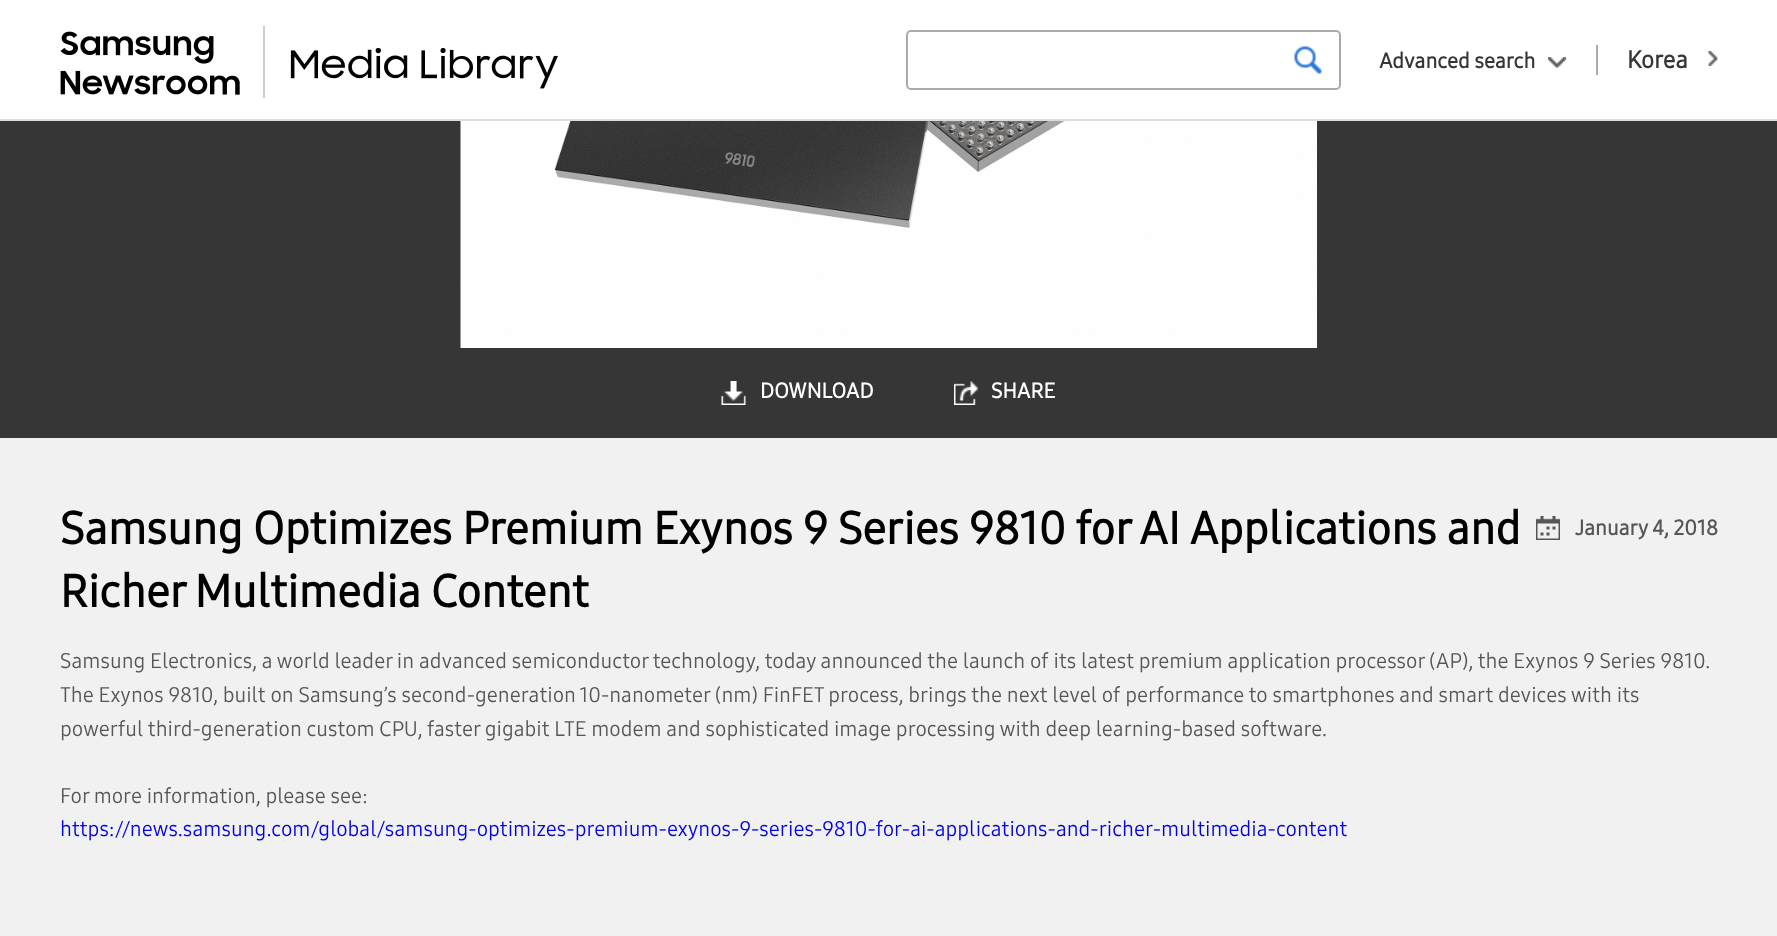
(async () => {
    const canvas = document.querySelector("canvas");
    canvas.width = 1777;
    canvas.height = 936;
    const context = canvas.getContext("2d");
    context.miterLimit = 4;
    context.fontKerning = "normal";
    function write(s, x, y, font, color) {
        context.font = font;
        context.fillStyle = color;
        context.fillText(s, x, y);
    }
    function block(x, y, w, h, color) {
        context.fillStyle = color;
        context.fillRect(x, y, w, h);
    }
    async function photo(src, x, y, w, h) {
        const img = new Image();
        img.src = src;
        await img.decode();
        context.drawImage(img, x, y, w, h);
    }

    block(0, 0, 1777, 936, "rgb(241, 241, 241)");
    block(0, 0, 1777, 119, "rgb(255, 255, 255)");
    block(0, 119, 1777, 2, "rgb(221, 221, 221)");
    block(263, 26, 2, 72, "rgb(204, 204, 204)");
    await photo("media/1.png", 60, 31, 180, 64);
    await photo("media/2.png", 290, 47, 268, 42);
    context.beginPath();
    context.roundRect(907, 31, 433, 58, 4);
    context.strokeStyle = "rgb(170, 170, 170)";
    context.lineWidth = 2;
    context.stroke();
    await photo("media/3.png", 1294, 46, 28, 28);
    write("Advanced search", 1379, 68, "bold 21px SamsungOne", "rgb(54, 54, 54)");
    await photo("media/4.png", 1548, 57, 18, 11);
    block(1596, 45, 2, 30, "rgb(170, 170, 170)");
    write("Korea", 1627, 68, "bold 24px SamsungOne", "rgb(54, 54, 54)");
    await photo("media/5.png", 1708, 51, 10, 15);
    block(0, 121, 1777, 317, "rgb(54, 54, 54)");
    await photo("media/6.png", 460, 121, 857, 227);
    await photo("media/7.png", 721, 381, 25, 24);
    write("DOWNLOAD", 760, 398, "bold 21px SamsungOne", "rgb(255, 255, 255)");
    await photo("media/8.png", 954, 381, 24, 24);
    write("SHARE", 991, 398, "bold 21px SamsungOne", "rgb(255, 255, 255)");
    write("Samsung Optimizes Premium Exynos 9 Series 9810 for AI Applications and", 60, 544, "bold 45px SamsungOne", "rgb(0, 0, 0)");
    write("Richer Multimedia Content", 60, 607, "bold 45px SamsungOne", "rgb(0, 0, 0)");
    await photo("media/9.png", 1536, 516, 24, 24);
    write("January 4, 2018", 1575, 535, "bold 21px SamsungOne", "rgb(86, 86, 86)");
    write("Samsung Electronics, a world leader in advanced semiconductor technology, today announced the launch of its latest premium application processor (AP), the Exynos 9 Series 9810.", 60, 668, "21px SamsungOne", "rgb(86, 86, 86)");
    write("The Exynos 9810, built on Samsung’s second-generation 10-nanometer (nm) FinFET process, brings the next level of performance to smartphones and smart devices with its", 60, 702, "21px SamsungOne", "rgb(86, 86, 86)");
    write("powerful third-generation custom CPU, faster gigabit LTE modem and sophisticated image processing with deep learning-based software.", 60, 736, "21px SamsungOne", "rgb(86, 86, 86)");
    write("For more information, please see:", 60, 803, "21px SamsungOne", "rgb(86, 86, 86)");
    write("https://news.samsung.com/global/samsung-optimizes-premium-exynos-9-series-9810-for-ai-applications-and-richer-multimedia-content", 60, 836, "21px SamsungOne", "rgb(0, 0, 238)");
})();
